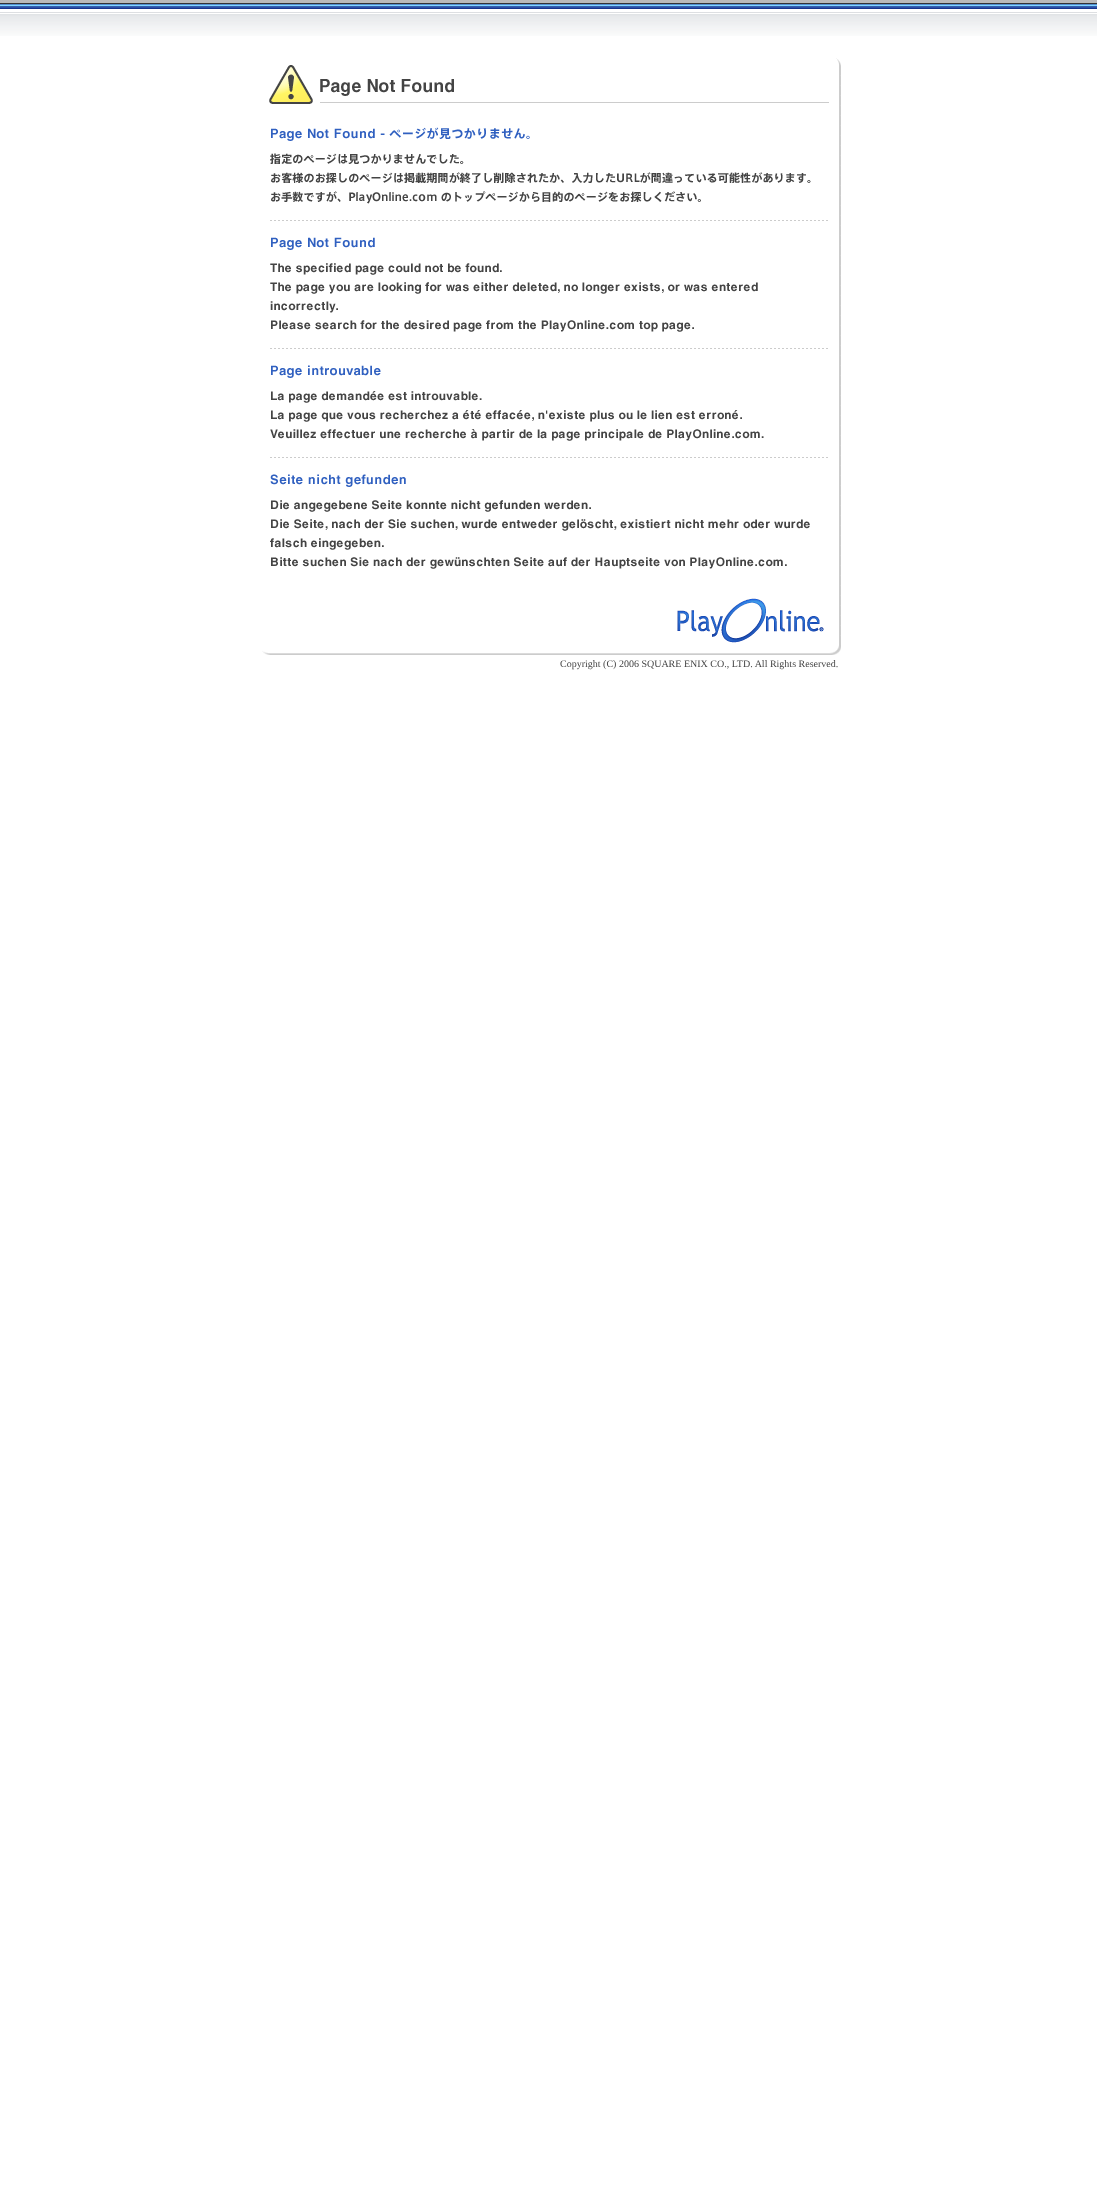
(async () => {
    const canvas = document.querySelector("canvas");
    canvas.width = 1097;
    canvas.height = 2199;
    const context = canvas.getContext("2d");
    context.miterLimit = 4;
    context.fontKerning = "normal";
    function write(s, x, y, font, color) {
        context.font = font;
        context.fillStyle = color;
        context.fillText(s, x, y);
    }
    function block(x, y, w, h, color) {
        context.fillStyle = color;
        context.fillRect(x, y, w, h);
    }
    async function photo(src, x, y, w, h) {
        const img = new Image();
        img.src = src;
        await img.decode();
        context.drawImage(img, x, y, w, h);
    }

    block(0, 0, 1097, 2199, "rgb(255, 255, 255)");
    await photo("media/1.png", 0, 0, 1097, 36);
    await photo("media/2.png", 839, 65, 2, 580);
    await photo("media/3.png", 836, 55, 5, 10);
    await photo("media/4.png", 269, 65, 560, 39);
    await photo("media/5.png", 270, 127, 558, 442);
    await photo("media/6.png", 677, 598, 147, 45);
    await photo("media/7.png", 262, 645, 579, 10);
    write("Copyright (C) 2006 SQUARE ENIX CO., LTD. All Rights Reserved.", 560, 667, "10px Liberation Serif", "rgb(68, 68, 68)");
})();
